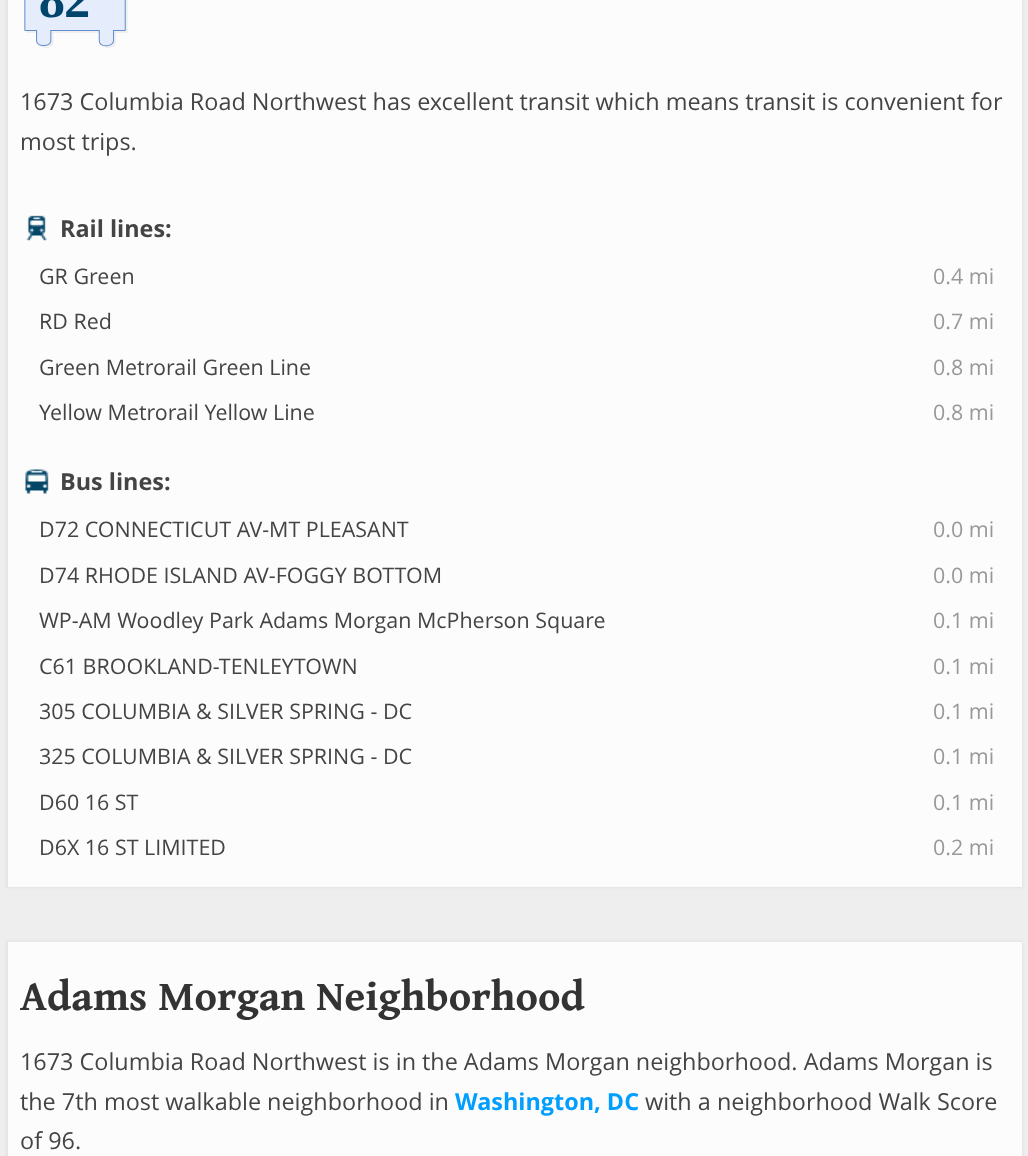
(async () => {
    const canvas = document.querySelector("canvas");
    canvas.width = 1028;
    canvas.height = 1156;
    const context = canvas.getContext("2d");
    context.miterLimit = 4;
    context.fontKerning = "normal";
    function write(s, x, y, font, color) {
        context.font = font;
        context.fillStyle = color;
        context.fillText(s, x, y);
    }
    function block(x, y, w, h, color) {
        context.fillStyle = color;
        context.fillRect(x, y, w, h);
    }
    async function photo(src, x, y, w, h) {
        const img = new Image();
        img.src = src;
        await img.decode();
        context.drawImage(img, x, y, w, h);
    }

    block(0, 0, 1028, 1156, "rgb(238, 238, 238)");
    context.fillStyle = "rgb(226, 226, 226)";
    context.filter = "blur(1.5px)";
    context.beginPath();
    context.rect(6, -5, 1017, 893);
    context.fill();
    context.filter = "none";
    block(8, 0, 1014, 887, "rgb(253, 252, 252)");
    await photo("media/1.png", 24, 0, 104, 48);
    write("1673 Columbia Road Northwest has excellent transit which means transit is convenient for", 20, 110, "23.4px Open Sans", "rgb(68, 68, 68)");
    write("most trips.", 20, 150, "23.4px Open Sans", "rgb(68, 68, 68)");
    await photo("media/2.png", 26, 215, 21, 26);
    write("Rail lines:", 60, 237, "bold 23.4px Open Sans", "rgb(68, 68, 68)");
    write("GR Green", 39, 284, "21.45px Open Sans", "rgb(68, 68, 68)");
    write("0.4 mi", 933, 284, "21.45px Open Sans", "rgb(153, 153, 153)");
    write("RD Red", 39, 329, "21.45px Open Sans", "rgb(68, 68, 68)");
    write("0.7 mi", 933, 329, "21.45px Open Sans", "rgb(153, 153, 153)");
    write("Green Metrorail Green Line", 39, 375, "21.45px Open Sans", "rgb(68, 68, 68)");
    write("0.8 mi", 933, 375, "21.45px Open Sans", "rgb(153, 153, 153)");
    write("Yellow Metrorail Yellow Line", 39, 420, "21.45px Open Sans", "rgb(68, 68, 68)");
    write("0.8 mi", 933, 420, "21.45px Open Sans", "rgb(153, 153, 153)");
    await photo("media/3.png", 25, 469, 24, 25);
    write("Bus lines:", 60, 490, "bold 23.4px Open Sans", "rgb(68, 68, 68)");
    write("D72 CONNECTICUT AV-MT PLEASANT", 39, 537, "21.45px Open Sans", "rgb(68, 68, 68)");
    write("0.0 mi", 933, 537, "21.45px Open Sans", "rgb(153, 153, 153)");
    write("D74 RHODE ISLAND AV-FOGGY BOTTOM", 39, 583, "21.45px Open Sans", "rgb(68, 68, 68)");
    write("0.0 mi", 933, 583, "21.45px Open Sans", "rgb(153, 153, 153)");
    write("WP-AM Woodley Park Adams Morgan McPherson Square", 39, 628, "21.45px Open Sans", "rgb(68, 68, 68)");
    write("0.1 mi", 933, 628, "21.45px Open Sans", "rgb(153, 153, 153)");
    write("C61 BROOKLAND-TENLEYTOWN", 39, 674, "21.45px Open Sans", "rgb(68, 68, 68)");
    write("0.1 mi", 933, 674, "21.45px Open Sans", "rgb(153, 153, 153)");
    write("305 COLUMBIA & SILVER SPRING - DC", 39, 719, "21.45px Open Sans", "rgb(68, 68, 68)");
    write("0.1 mi", 933, 719, "21.45px Open Sans", "rgb(153, 153, 153)");
    write("325 COLUMBIA & SILVER SPRING - DC", 39, 764, "21.45px Open Sans", "rgb(68, 68, 68)");
    write("0.1 mi", 933, 764, "21.45px Open Sans", "rgb(153, 153, 153)");
    write("D60 16 ST", 39, 810, "21.45px Open Sans", "rgb(68, 68, 68)");
    write("0.1 mi", 933, 810, "21.45px Open Sans", "rgb(153, 153, 153)");
    write("D6X 16 ST LIMITED", 39, 855, "21.45px Open Sans", "rgb(68, 68, 68)");
    write("0.2 mi", 933, 855, "21.45px Open Sans", "rgb(153, 153, 153)");
    context.fillStyle = "rgb(226, 226, 226)";
    context.filter = "blur(1.5px)";
    context.beginPath();
    context.rect(6, 941, 1017, 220);
    context.fill();
    context.filter = "none";
    block(8, 942, 1014, 214, "rgb(253, 252, 252)");
    write("Adams Morgan Neighborhood", 20, 1010, "bold 42.25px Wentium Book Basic", "rgb(51, 51, 51)");
    write("1673 Columbia Road Northwest is in the Adams Morgan neighborhood. Adams Morgan is", 20, 1070, "23.4px Open Sans", "rgb(68, 68, 68)");
    write("the 7th most walkable neighborhood in", 20, 1110, "23.4px Open Sans", "rgb(68, 68, 68)");
    write("Washington, DC", 455, 1110, "bold 23.4px Open Sans", "rgb(0, 158, 255)");
    write("with a neighborhood Walk Score", 645, 1110, "23.4px Open Sans", "rgb(68, 68, 68)");
    write("of 96.", 20, 1149, "23.4px Open Sans", "rgb(68, 68, 68)");
})();
